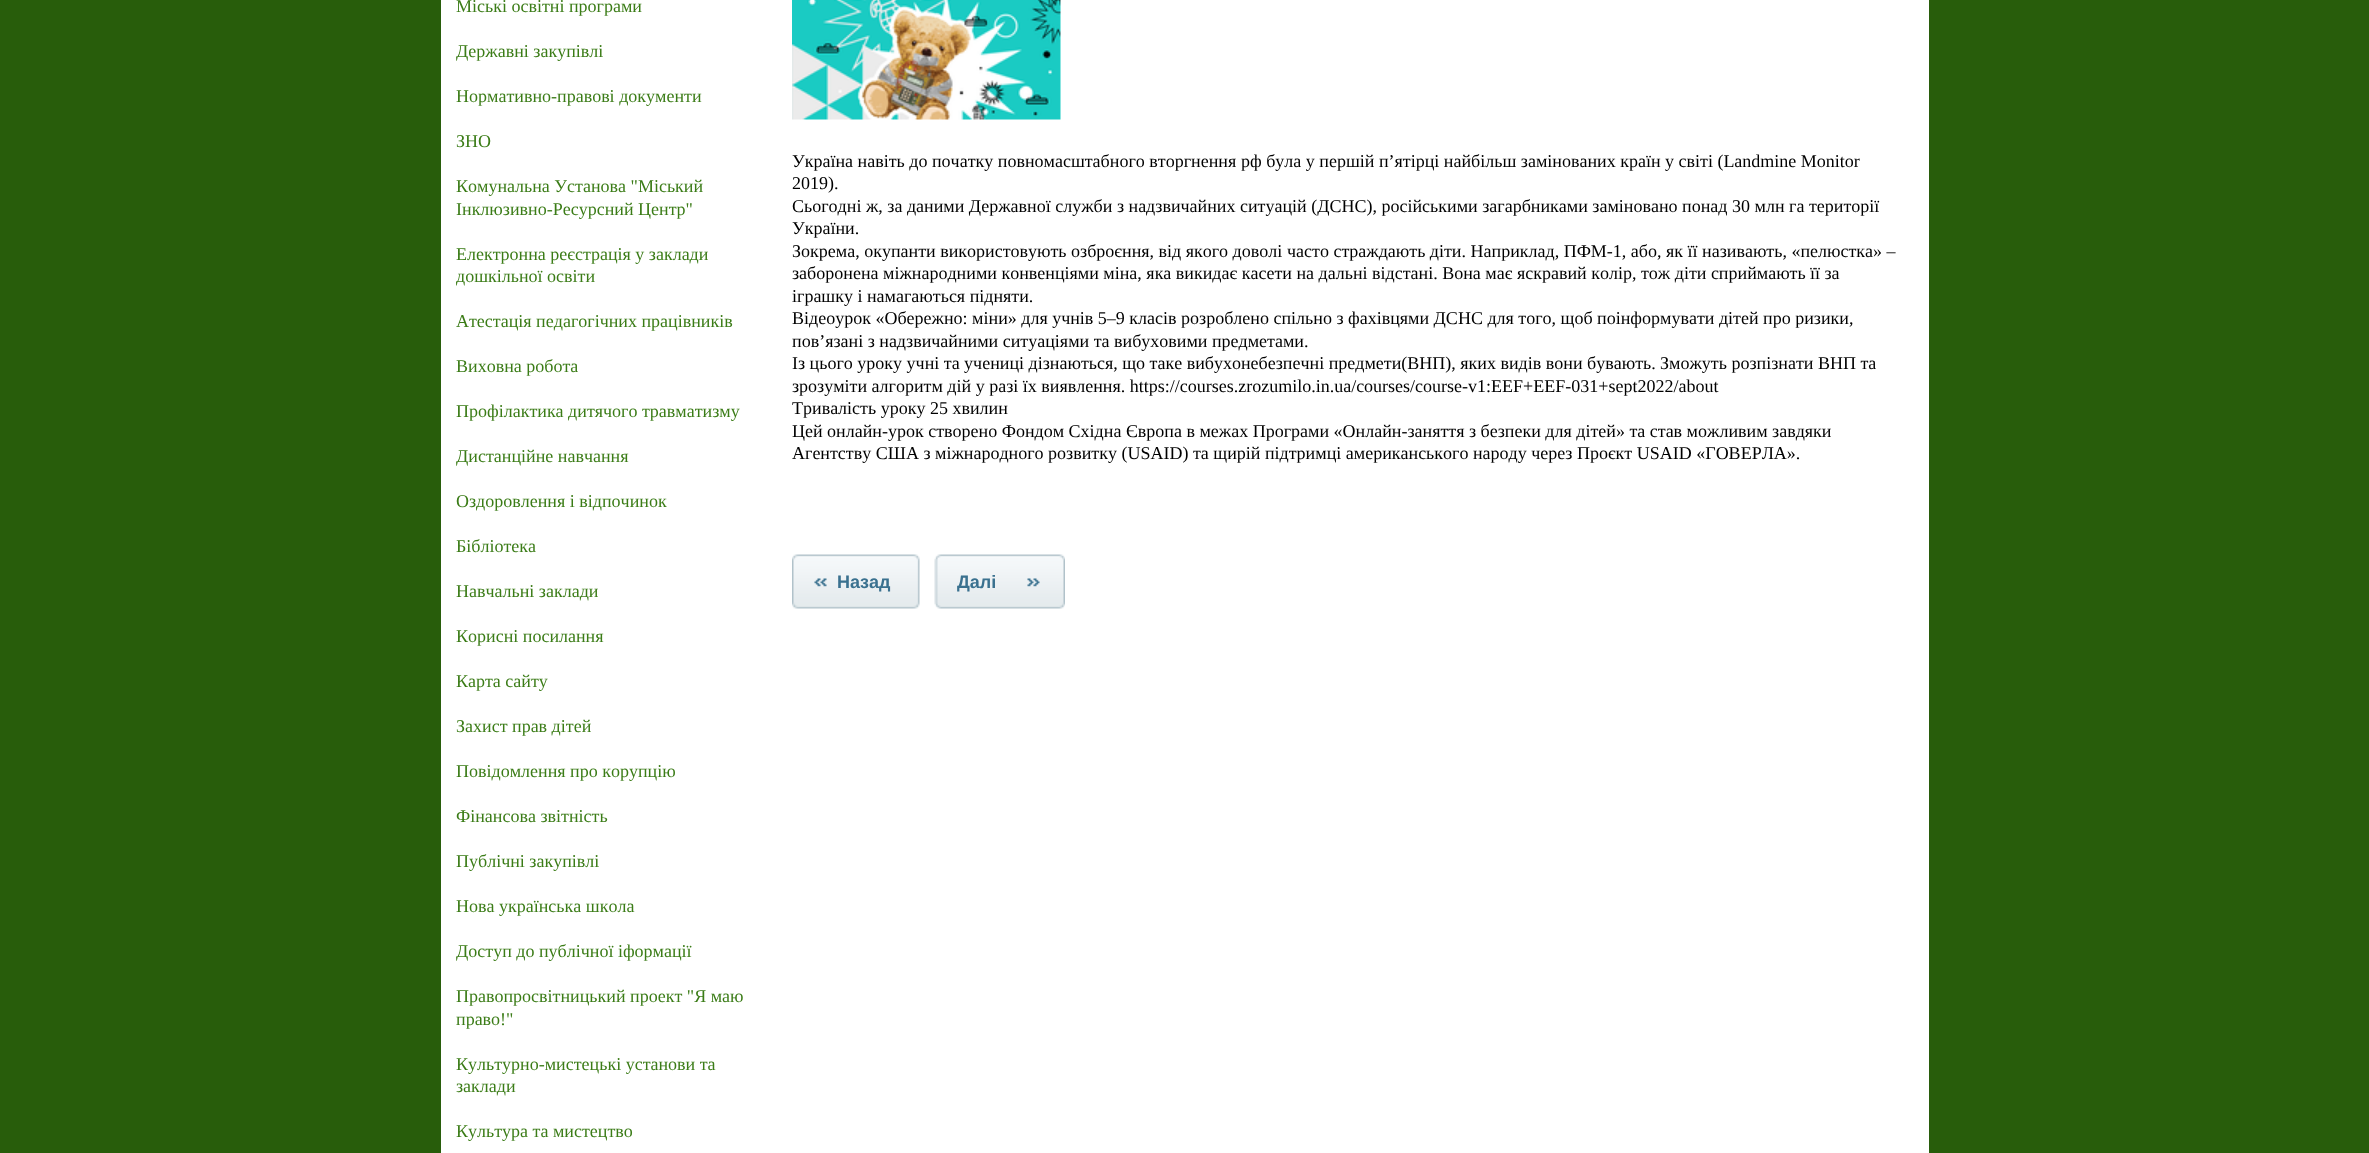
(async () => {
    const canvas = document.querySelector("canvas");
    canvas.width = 2369;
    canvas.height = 1153;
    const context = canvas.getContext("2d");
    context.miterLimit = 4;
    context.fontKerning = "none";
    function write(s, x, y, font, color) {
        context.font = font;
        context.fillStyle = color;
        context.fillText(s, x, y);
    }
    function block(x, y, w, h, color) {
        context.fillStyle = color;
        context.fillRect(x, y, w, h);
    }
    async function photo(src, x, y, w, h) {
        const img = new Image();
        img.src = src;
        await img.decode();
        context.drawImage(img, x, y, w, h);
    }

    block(0, 0, 2369, 1153, "rgb(40, 93, 11)");
    block(441, 0, 1488, 1153, "rgb(255, 255, 255)");
    write("Міські освітні програми", 456, 12, "18px Liberation Serif", "rgb(59, 124, 23)");
    write("Державні закупівлі", 456, 57, "18px Liberation Serif", "rgb(59, 124, 23)");
    write("Нормативно-правові документи", 456, 102, "18px Liberation Serif", "rgb(59, 124, 23)");
    write("ЗНО", 456, 147, "18px Liberation Serif", "rgb(59, 124, 23)");
    write("Комунальна Установа \"Міський", 456, 192, "18px Liberation Serif", "rgb(59, 124, 23)");
    write("Інклюзивно-Ресурсний Центр\"", 456, 215, "18px Liberation Serif", "rgb(59, 124, 23)");
    write("Електронна реєстрація у заклади", 456, 260, "18px Liberation Serif", "rgb(59, 124, 23)");
    write("дошкільної освіти", 456, 282, "18px Liberation Serif", "rgb(59, 124, 23)");
    write("Атестація педагогічних працівників", 456, 327, "18px Liberation Serif", "rgb(59, 124, 23)");
    write("Виховна робота", 456, 372, "18px Liberation Serif", "rgb(59, 124, 23)");
    write("Профілактика дитячого травматизму", 456, 417, "18px Liberation Serif", "rgb(59, 124, 23)");
    write("Дистанційне навчання", 456, 462, "18px Liberation Serif", "rgb(59, 124, 23)");
    write("Оздоровлення і відпочинок", 456, 507, "18px Liberation Serif", "rgb(59, 124, 23)");
    write("Бібліотека", 456, 552, "18px Liberation Serif", "rgb(59, 124, 23)");
    write("Навчальні заклади", 456, 597, "18px Liberation Serif", "rgb(59, 124, 23)");
    write("Корисні посилання", 456, 642, "18px Liberation Serif", "rgb(59, 124, 23)");
    write("Карта сайту", 456, 687, "18px Liberation Serif", "rgb(59, 124, 23)");
    write("Захист прав дітей", 456, 732, "18px Liberation Serif", "rgb(59, 124, 23)");
    write("Повідомлення про корупцію", 456, 777, "18px Liberation Serif", "rgb(59, 124, 23)");
    write("Фінансова звітність", 456, 822, "18px Liberation Serif", "rgb(59, 124, 23)");
    write("Публічні закупівлі", 456, 867, "18px Liberation Serif", "rgb(59, 124, 23)");
    write("Нова українська школа", 456, 912, "18px Liberation Serif", "rgb(59, 124, 23)");
    write("Доступ до публічної іформації", 456, 957, "18px Liberation Serif", "rgb(59, 124, 23)");
    write("Правопросвітницький проект \"Я маю", 456, 1002, "18px Liberation Serif", "rgb(59, 124, 23)");
    write("право!\"", 456, 1025, "18px Liberation Serif", "rgb(59, 124, 23)");
    write("Культурно-мистецькі установи та", 456, 1070, "18px Liberation Serif", "rgb(59, 124, 23)");
    write("заклади", 456, 1092, "18px Liberation Serif", "rgb(59, 124, 23)");
    write("Культура та мистецтво", 456, 1137, "18px Liberation Serif", "rgb(59, 124, 23)");
    await photo("media/1.png", 792, 0, 269, 120);
    write("Україна навіть до початку повномасштабного вторгнення", 792, 167, "18px Liberation Serif", "rgb(0, 0, 0)");
    write("рф була у першій п’ятірці найбільш замінованих країн у світі (Landmine Monitor", 1241, 167, "18px Liberation Serif", "rgb(0, 0, 0)");
    write("2019).", 792, 189, "18px Liberation Serif", "rgb(0, 0, 0)");
    write("Сьогодні ж, за даними Державної служби з надзвичайних ситуацій (ДСНС), російськими загарбниками заміновано понад 30 млн га території", 792, 212, "18px Liberation Serif", "rgb(0, 0, 0)");
    write("України.", 792, 234, "18px Liberation Serif", "rgb(0, 0, 0)");
    write("Зокрема, окупанти використовують озброєння, від якого доволі", 792, 257, "18px Liberation Serif", "rgb(0, 0, 0)");
    write("часто страждають діти. Наприклад, ПФМ-1, або, як її називають, «пелюстка» –", 1287, 257, "18px Liberation Serif", "rgb(0, 0, 0)");
    write("заборонена міжнародними конвенціями міна, яка викидає касети на дальні відстані. Вона має яскравий колір, тож діти сприймають", 792, 279, "18px Liberation Serif", "rgb(0, 0, 0)");
    write("її за", 1810, 279, "18px Liberation Serif", "rgb(0, 0, 0)");
    write("іграшку і намагаються підняти.", 792, 302, "18px Liberation Serif", "rgb(0, 0, 0)");
    write("Відеоурок «Обережно: міни» для учнів 5–9 класів розроблено спільно з фахівцями ДСНС для того, щоб поінформувати дітей про ризики,", 792, 324, "18px Liberation Serif", "rgb(0, 0, 0)");
    write("пов’язані з надзвичайними ситуаціями та вибуховими предметами.", 792, 347, "18px Liberation Serif", "rgb(0, 0, 0)");
    write("Із цього уроку учні та учениці дізнаються, що таке вибухонебезпечні предмети(ВНП), яких видів вони бувають.", 792, 369, "18px Liberation Serif", "rgb(0, 0, 0)");
    write("Зможуть розпізнати ВНП та", 1660, 369, "18px Liberation Serif", "rgb(0, 0, 0)");
    write("зрозуміти алгоритм дій у разі їх виявлення. https://courses.zrozumilo.in.ua/courses/course-v1:EEF+EEF-031+sept2022/about", 792, 392, "18px Liberation Serif", "rgb(0, 0, 0)");
    write("Тривалість уроку 25 хвилин", 792, 414, "18px Liberation Serif", "rgb(0, 0, 0)");
    write("Цей онлайн-урок створено Фондом Східна Європа в межах Програми «Онлайн-заняття з безпеки для дітей» та став можливим завдяки", 792, 437, "18px Liberation Serif", "rgb(0, 0, 0)");
    write("Агентству США з міжнародного розвитку (USAID) та щирій підтримці американського народу через Проєкт USAID «ГОВЕРЛА».", 792, 459, "18px Liberation Serif", "rgb(0, 0, 0)");
    await photo("media/2.png", 792, 554, 128, 55);
    write("Назад", 837, 588, "bold 18px Liberation Sans", "rgb(58, 113, 143)");
    await photo("media/3.png", 934, 554, 131, 55);
    write("Далі", 957, 588, "bold 18px Liberation Sans", "rgb(58, 113, 143)");
})();
